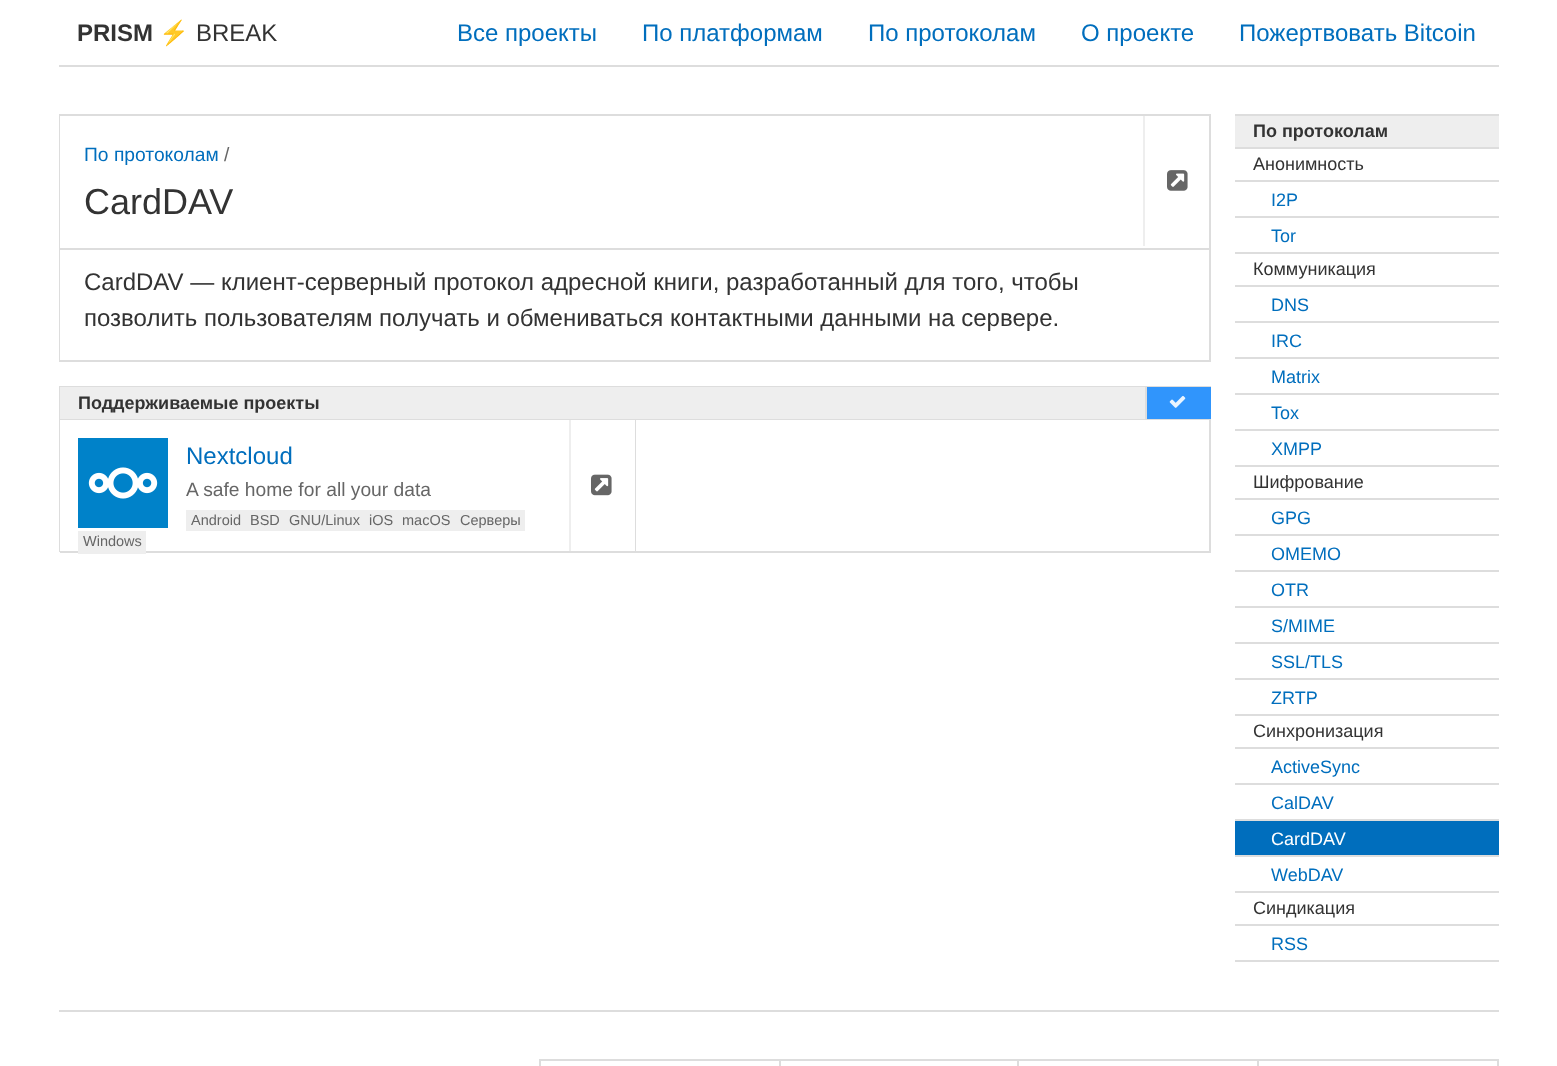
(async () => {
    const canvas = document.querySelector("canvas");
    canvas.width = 1557;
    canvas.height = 1066;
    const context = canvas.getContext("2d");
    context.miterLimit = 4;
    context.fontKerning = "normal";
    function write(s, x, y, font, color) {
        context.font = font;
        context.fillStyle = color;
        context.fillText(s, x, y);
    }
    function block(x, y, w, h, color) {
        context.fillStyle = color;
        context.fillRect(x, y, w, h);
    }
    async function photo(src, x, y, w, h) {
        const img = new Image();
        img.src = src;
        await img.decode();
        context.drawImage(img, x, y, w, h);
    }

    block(0, 0, 1557, 1066, "rgb(255, 255, 255)");
    block(59, 65, 1440, 2, "rgb(221, 221, 221)");
    write("PRISM", 77, 41, "bold 24px Liberation Sans", "rgb(51, 51, 51)");
    write("⚡", 159, 41, "24px Noto Color Emoji", "rgb(153, 153, 153)");
    write("BREAK", 196, 41, "24px Liberation Sans", "rgb(51, 51, 51)");
    write("Все проекты", 457, 41, "24px Liberation Sans", "rgb(0, 110, 189)");
    write("По платформам", 642, 41, "24px Liberation Sans", "rgb(0, 110, 189)");
    write("По протоколам", 868, 41, "24px Liberation Sans", "rgb(0, 110, 189)");
    write("О проекте", 1081, 41, "24px Liberation Sans", "rgb(0, 110, 189)");
    write("Пожертвовать Bitcoin", 1239, 41, "24px Liberation Sans", "rgb(0, 110, 189)");
    context.strokeStyle = "rgb(221, 221, 221)";
    context.lineWidth = 2;
    context.strokeRect(60, 115, 1150, 246);
    block(60, 116, 1, 132, "rgb(255, 255, 255)");
    write("По протоколам", 84, 161, "19.25px Liberation Sans", "rgb(0, 110, 189)");
    write("/", 224, 161, "19.25px Liberation Sans", "rgb(102, 102, 102)");
    write("CardDAV", 84, 214, "36px Liberation Sans", "rgb(51, 51, 51)");
    block(1143, 116, 2, 130, "rgb(238, 238, 238)");
    await photo("media/1.png", 1167, 170, 21, 21);
    block(60, 250, 1, 110, "rgb(255, 255, 255)");
    block(60, 248, 1149, 2, "rgb(221, 221, 221)");
    write("CardDAV — клиент-серверный протокол адресной книги, разработанный для того, чтобы", 84, 290, "24px Liberation Sans", "rgb(51, 51, 51)");
    write("позволить пользователям получать и обмениваться контактными данными на сервере.", 84, 326, "24px Liberation Sans", "rgb(51, 51, 51)");
    block(59, 386, 1152, 1, "rgb(221, 221, 221)");
    block(59, 386, 2, 166, "rgb(221, 221, 221)");
    block(60, 387, 1085, 32, "rgb(238, 238, 238)");
    block(60, 419, 1151, 1, "rgb(221, 221, 221)");
    write("Поддерживаемые проекты", 78, 409, "bold 18px Liberation Sans", "rgb(51, 51, 51)");
    block(1147, 387, 64, 32, "rgb(48, 149, 252)");
    block(1145, 387, 2, 32, "rgb(221, 221, 221)");
    await photo("media/2.png", 1169, 396, 17, 12);
    block(60, 420, 1, 131, "rgb(255, 255, 255)");
    block(635, 420, 1, 132, "rgb(221, 221, 221)");
    block(60, 551, 576, 2, "rgb(221, 221, 221)");
    await photo("media/3.png", 78, 438, 90, 90);
    write("Nextcloud", 186, 464, "24px Liberation Sans", "rgb(0, 110, 189)");
    write("A safe home for all your data", 186, 496, "19.25px Liberation Sans", "rgb(102, 102, 102)");
    block(186, 510, 339, 21, "rgb(238, 238, 238)");
    write("Android", 191, 525, "14.5px Liberation Sans", "rgb(102, 102, 102)");
    write("BSD", 250, 525, "14.5px Liberation Sans", "rgb(102, 102, 102)");
    write("GNU/Linux", 289, 525, "14.5px Liberation Sans", "rgb(102, 102, 102)");
    write("iOS", 369, 525, "14.5px Liberation Sans", "rgb(102, 102, 102)");
    write("macOS", 402, 525, "14.5px Liberation Sans", "rgb(102, 102, 102)");
    write("Серверы", 460, 525, "14.5px Liberation Sans", "rgb(102, 102, 102)");
    block(78, 531, 68, 23, "rgb(238, 238, 238)");
    write("Windows", 83, 546, "14.5px Liberation Sans", "rgb(102, 102, 102)");
    block(569, 420, 2, 131, "rgb(238, 238, 238)");
    await photo("media/4.png", 591, 474, 21, 22);
    block(1209, 420, 2, 132, "rgb(221, 221, 221)");
    block(636, 551, 575, 2, "rgb(221, 221, 221)");
    block(1235, 114, 264, 2, "rgb(221, 221, 221)");
    block(1235, 116, 264, 31, "rgb(238, 238, 238)");
    block(1235, 147, 264, 2, "rgb(221, 221, 221)");
    write("По протоколам", 1253, 137, "bold 18px Liberation Sans", "rgb(51, 51, 51)");
    block(1235, 180, 264, 2, "rgb(221, 221, 221)");
    write("Анонимность", 1253, 170, "18px Liberation Sans", "rgb(51, 51, 51)");
    block(1235, 216, 264, 2, "rgb(221, 221, 221)");
    write("I2P", 1271, 206, "18px Liberation Sans", "rgb(0, 110, 189)");
    block(1235, 252, 264, 2, "rgb(221, 221, 221)");
    write("Tor", 1271, 242, "18px Liberation Sans", "rgb(0, 110, 189)");
    block(1235, 285, 264, 2, "rgb(221, 221, 221)");
    write("Коммуникация", 1253, 275, "18px Liberation Sans", "rgb(51, 51, 51)");
    block(1235, 321, 264, 2, "rgb(221, 221, 221)");
    write("DNS", 1271, 311, "18px Liberation Sans", "rgb(0, 110, 189)");
    block(1235, 357, 264, 2, "rgb(221, 221, 221)");
    write("IRC", 1271, 347, "18px Liberation Sans", "rgb(0, 110, 189)");
    block(1235, 393, 264, 2, "rgb(221, 221, 221)");
    write("Matrix", 1271, 383, "18px Liberation Sans", "rgb(0, 110, 189)");
    block(1235, 429, 264, 2, "rgb(221, 221, 221)");
    write("Tox", 1271, 419, "18px Liberation Sans", "rgb(0, 110, 189)");
    block(1235, 465, 264, 2, "rgb(221, 221, 221)");
    write("XMPP", 1271, 455, "18px Liberation Sans", "rgb(0, 110, 189)");
    block(1235, 498, 264, 2, "rgb(221, 221, 221)");
    write("Шифрование", 1253, 488, "18px Liberation Sans", "rgb(51, 51, 51)");
    block(1235, 534, 264, 2, "rgb(221, 221, 221)");
    write("GPG", 1271, 524, "18px Liberation Sans", "rgb(0, 110, 189)");
    block(1235, 570, 264, 2, "rgb(221, 221, 221)");
    write("OMEMO", 1271, 560, "18px Liberation Sans", "rgb(0, 110, 189)");
    block(1235, 606, 264, 2, "rgb(221, 221, 221)");
    write("OTR", 1271, 596, "18px Liberation Sans", "rgb(0, 110, 189)");
    block(1235, 642, 264, 2, "rgb(221, 221, 221)");
    write("S/MIME", 1271, 632, "18px Liberation Sans", "rgb(0, 110, 189)");
    block(1235, 678, 264, 2, "rgb(221, 221, 221)");
    write("SSL/TLS", 1271, 668, "18px Liberation Sans", "rgb(0, 110, 189)");
    block(1235, 714, 264, 2, "rgb(221, 221, 221)");
    write("ZRTP", 1271, 704, "18px Liberation Sans", "rgb(0, 110, 189)");
    block(1235, 747, 264, 2, "rgb(221, 221, 221)");
    write("Синхронизация", 1253, 737, "18px Liberation Sans", "rgb(51, 51, 51)");
    block(1235, 783, 264, 2, "rgb(221, 221, 221)");
    write("ActiveSync", 1271, 773, "18px Liberation Sans", "rgb(0, 110, 189)");
    block(1235, 819, 264, 2, "rgb(221, 221, 221)");
    write("CalDAV", 1271, 809, "18px Liberation Sans", "rgb(0, 110, 189)");
    block(1235, 821, 264, 34, "rgb(0, 110, 189)");
    block(1235, 855, 264, 2, "rgb(221, 221, 221)");
    write("CardDAV", 1271, 845, "18px Liberation Sans", "rgb(255, 255, 255)");
    block(1235, 891, 264, 2, "rgb(221, 221, 221)");
    write("WebDAV", 1271, 881, "18px Liberation Sans", "rgb(0, 110, 189)");
    block(1235, 924, 264, 2, "rgb(221, 221, 221)");
    write("Синдикация", 1253, 914, "18px Liberation Sans", "rgb(51, 51, 51)");
    block(1235, 960, 264, 2, "rgb(221, 221, 221)");
    write("RSS", 1271, 950, "18px Liberation Sans", "rgb(0, 110, 189)");
    block(59, 1010, 1440, 2, "rgb(221, 221, 221)");
    block(539, 1059, 960, 2, "rgb(221, 221, 221)");
    block(539, 1059, 2, 7, "rgb(221, 221, 221)");
    block(779, 1061, 2, 5, "rgb(221, 221, 221)");
    block(1017, 1061, 2, 5, "rgb(221, 221, 221)");
    block(1257, 1061, 2, 5, "rgb(221, 221, 221)");
    block(1497, 1061, 2, 5, "rgb(221, 221, 221)");
})();
